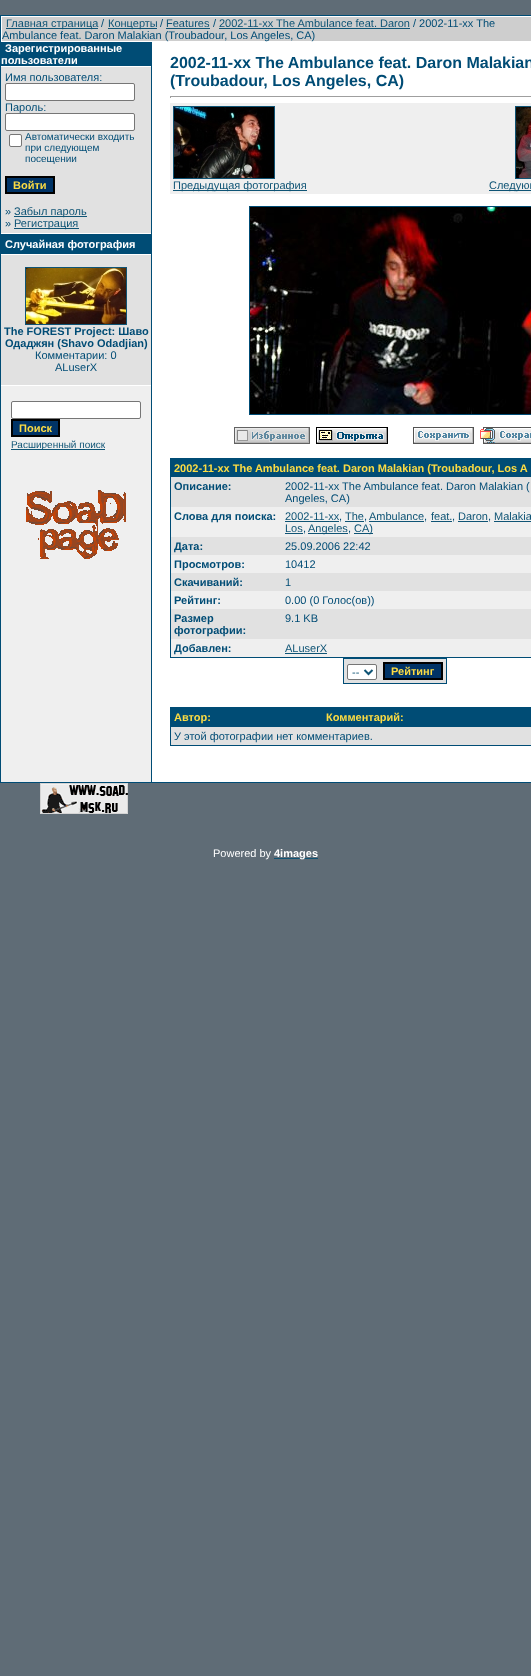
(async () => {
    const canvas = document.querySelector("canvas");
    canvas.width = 531;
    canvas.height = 1676;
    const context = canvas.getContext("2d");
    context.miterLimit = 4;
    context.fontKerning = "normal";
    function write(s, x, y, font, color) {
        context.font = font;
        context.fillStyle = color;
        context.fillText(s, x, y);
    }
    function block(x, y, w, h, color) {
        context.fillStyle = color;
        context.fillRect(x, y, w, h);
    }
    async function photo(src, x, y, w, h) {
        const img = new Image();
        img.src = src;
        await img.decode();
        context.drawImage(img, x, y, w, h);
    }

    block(0, 0, 531, 1676, "rgb(95, 108, 118)");
    block(0, 15, 531, 768, "rgb(0, 76, 117)");
    block(1, 16, 530, 766, "rgb(255, 255, 255)");
    block(2, 17, 529, 24, "rgb(206, 206, 206)");
    block(6, 28, 92, 1, "rgb(15, 84, 117)");
    write("Главная страница", 6, 27, "11px Liberation Sans", "rgb(15, 84, 117)");
    write("/", 101, 27, "11px Liberation Sans", "rgb(0, 76, 117)");
    block(108, 28, 49, 1, "rgb(15, 84, 117)");
    write("Концерты", 108, 27, "11px Liberation Sans", "rgb(15, 84, 117)");
    write("/", 160, 27, "11px Liberation Sans", "rgb(0, 76, 117)");
    write("Features", 166, 27, "11px Liberation Sans", "rgb(15, 84, 117)");
    block(166, 28, 44, 1, "rgb(15, 84, 117)");
    write("/", 213, 27, "11px Liberation Sans", "rgb(0, 76, 117)");
    write("2002-11-xx The Ambulance feat. Daron", 219, 27, "11px Liberation Sans", "rgb(15, 84, 117)");
    block(219, 28, 191, 1, "rgb(15, 84, 117)");
    write("/ 2002-11-xx The", 413, 27, "11px Liberation Sans", "rgb(0, 76, 117)");
    write("Ambulance feat. Daron Malakian (Troubadour, Los Angeles, CA)", 2, 39, "11px Liberation Sans", "rgb(0, 76, 117)");
    block(1, 386, 150, 396, "rgb(239, 239, 239)");
    block(1, 42, 150, 24, "rgb(0, 76, 117)");
    write("Зарегистрированные", 5, 52, "bold 11px Liberation Sans", "rgb(255, 255, 255)");
    write("пользователи", 1, 64, "bold 11px Liberation Sans", "rgb(255, 255, 255)");
    block(1, 67, 150, 166, "rgb(225, 225, 225)");
    write("Имя пользователя:", 5, 81, "11px Liberation Sans", "rgb(0, 76, 117)");
    context.fillStyle = "rgb(255, 255, 255)";
    context.beginPath();
    context.roundRect(5.5, 83.5, 129, 17, 1.5);
    context.fill();
    context.strokeStyle = "rgb(118, 118, 118)";
    context.stroke();
    write("Пароль:", 5, 111, "11px Liberation Sans", "rgb(0, 76, 117)");
    context.fillStyle = "rgb(255, 255, 255)";
    context.beginPath();
    context.roundRect(5.5, 113.5, 129, 17, 1.5);
    context.fill();
    context.stroke();
    context.beginPath();
    context.roundRect(9.5, 134.5, 12, 12, 1.5);
    context.fill();
    context.stroke();
    write("Автоматически входить", 25, 140, "10px Liberation Sans", "rgb(0, 76, 117)");
    write("при следующем", 25, 151, "10px Liberation Sans", "rgb(0, 76, 117)");
    write("посещении", 25, 162, "10px Liberation Sans", "rgb(0, 76, 117)");
    context.fillStyle = "rgb(0, 51, 102)";
    context.beginPath();
    context.rect(6, 177, 48, 16);
    context.fill();
    context.strokeStyle = "rgb(0, 0, 0)";
    context.lineWidth = 2;
    context.stroke();
    write("Войти", 13, 189, "bold 11px Liberation Sans", "rgb(252, 220, 67)");
    write("»", 5, 215, "11px Liberation Sans", "rgb(0, 76, 117)");
    block(14, 216, 73, 1, "rgb(15, 84, 117)");
    write("Забыл пароль", 14, 215, "11px Liberation Sans", "rgb(15, 84, 117)");
    write("»", 5, 227, "11px Liberation Sans", "rgb(0, 76, 117)");
    block(14, 228, 65, 1, "rgb(15, 84, 117)");
    write("Регистрация", 14, 227, "11px Liberation Sans", "rgb(15, 84, 117)");
    block(1, 234, 150, 20, "rgb(0, 76, 117)");
    write("Случайная фотография", 5, 248, "bold 11px Liberation Sans", "rgb(255, 255, 255)");
    block(1, 255, 150, 130, "rgb(225, 225, 225)");
    context.strokeStyle = "rgb(15, 84, 117)";
    context.lineWidth = 1;
    context.strokeRect(25.5, 267.5, 101, 57);
    await photo("media/1.png", 26, 268, 100, 56);
    write("The FOREST Project: Шаво", 4, 335, "bold 11px Liberation Sans", "rgb(0, 76, 117)");
    write("Одаджян (Shavo Odadjian)", 5, 347, "bold 11px Liberation Sans", "rgb(0, 76, 117)");
    write("Комментарии: 0", 35, 359, "11px Liberation Sans", "rgb(0, 76, 117)");
    write("ALuserX", 55, 371, "11px Liberation Sans", "rgb(0, 76, 117)");
    context.fillStyle = "rgb(255, 255, 255)";
    context.beginPath();
    context.roundRect(11.5, 401.5, 129, 17, 1.5);
    context.fill();
    context.strokeStyle = "rgb(118, 118, 118)";
    context.stroke();
    context.fillStyle = "rgb(0, 51, 102)";
    context.beginPath();
    context.rect(12, 420, 47, 16);
    context.fill();
    context.strokeStyle = "rgb(0, 0, 0)";
    context.lineWidth = 2;
    context.stroke();
    write("Поиск", 19, 432, "bold 11px Liberation Sans", "rgb(252, 220, 67)");
    block(11, 449, 94, 1, "rgb(15, 84, 117)");
    write("Расширенный поиск", 11, 448, "10px Liberation Sans", "rgb(15, 84, 117)");
    await photo("media/2.png", 26, 490, 100, 69);
    block(151, 42, 1, 740, "rgb(0, 76, 117)");
    write("2002-11-xx The Ambulance feat. Daron Malakian", 170, 68, "bold 16px Liberation Sans", "rgb(0, 76, 117)");
    write("(Troubadour, Los Angeles, CA)", 170, 86, "bold 16px Liberation Sans", "rgb(0, 76, 117)");
    block(170, 96, 361, 1, "rgb(159, 159, 159)");
    block(170, 96, 1, 2, "rgb(159, 159, 159)");
    block(170, 103, 361, 91, "rgb(239, 239, 239)");
    context.strokeStyle = "rgb(15, 84, 117)";
    context.lineWidth = 1;
    context.strokeRect(173.5, 106.5, 101, 72);
    await photo("media/3.png", 174, 107, 100, 71);
    block(173, 190, 134, 1, "rgb(15, 84, 117)");
    write("Предыдущая фотография", 173, 189, "11px Liberation Sans", "rgb(15, 84, 117)");
    context.strokeRect(515.5, 106.5, 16, 72);
    await photo("media/4.png", 516, 107, 15, 71);
    block(489, 190, 42, 1, "rgb(15, 84, 117)");
    write("Следующ", 489, 189, "11px Liberation Sans", "rgb(15, 84, 117)");
    context.strokeStyle = "rgb(0, 76, 117)";
    context.strokeRect(249.5, 206.5, 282, 208);
    await photo("media/5.png", 250, 207, 281, 207);
    await photo("media/6.png", 234, 427, 76, 17);
    await photo("media/7.png", 316, 427, 72, 17);
    await photo("media/8.png", 413, 427, 61, 17);
    await photo("media/9.png", 480, 427, 51, 17);
    block(170, 458, 361, 200, "rgb(0, 76, 117)");
    write("2002-11-xx The Ambulance feat. Daron Malakian (Troubadour, Los A", 174, 472, "bold 11px Liberation Sans", "rgb(252, 220, 67)");
    block(171, 477, 360, 30, "rgb(225, 225, 225)");
    write("Описание:", 174, 490, "bold 11px Liberation Sans", "rgb(0, 76, 117)");
    write("2002-11-xx The Ambulance feat. Daron Malakian (", 285, 490, "11px Liberation Sans", "rgb(0, 76, 117)");
    write("Angeles, CA)", 285, 502, "11px Liberation Sans", "rgb(0, 76, 117)");
    block(171, 507, 360, 30, "rgb(239, 239, 239)");
    write("Слова для поиска:", 174, 520, "bold 11px Liberation Sans", "rgb(0, 76, 117)");
    write("2002-11-xx", 285, 520, "11px Liberation Sans", "rgb(15, 84, 117)");
    block(285, 521, 54, 1, "rgb(15, 84, 117)");
    write(",", 339, 520, "11px Liberation Sans", "rgb(0, 76, 117)");
    write("The", 345, 520, "11px Liberation Sans", "rgb(15, 84, 117)");
    block(345, 521, 19, 1, "rgb(15, 84, 117)");
    write(",", 364, 520, "11px Liberation Sans", "rgb(0, 76, 117)");
    write("Ambulance", 369, 520, "11px Liberation Sans", "rgb(15, 84, 117)");
    block(369, 521, 55, 1, "rgb(15, 84, 117)");
    write(",", 424, 520, "11px Liberation Sans", "rgb(0, 76, 117)");
    write("feat.", 431, 520, "11px Liberation Sans", "rgb(15, 84, 117)");
    block(431, 521, 21, 1, "rgb(15, 84, 117)");
    write(",", 452, 520, "11px Liberation Sans", "rgb(0, 76, 117)");
    write("Daron", 458, 520, "11px Liberation Sans", "rgb(15, 84, 117)");
    block(458, 521, 30, 1, "rgb(15, 84, 117)");
    write(",", 488, 520, "11px Liberation Sans", "rgb(0, 76, 117)");
    write("Malakia", 494, 520, "11px Liberation Sans", "rgb(15, 84, 117)");
    block(494, 521, 37, 1, "rgb(15, 84, 117)");
    write("Los", 285, 532, "11px Liberation Sans", "rgb(15, 84, 117)");
    block(285, 533, 18, 1, "rgb(15, 84, 117)");
    write(",", 303, 532, "11px Liberation Sans", "rgb(0, 76, 117)");
    block(308, 533, 40, 1, "rgb(15, 84, 117)");
    write("Angeles", 308, 532, "11px Liberation Sans", "rgb(15, 84, 117)");
    write(",", 348, 532, "11px Liberation Sans", "rgb(0, 76, 117)");
    block(354, 533, 19, 1, "rgb(15, 84, 117)");
    write("CA)", 354, 532, "11px Liberation Sans", "rgb(15, 84, 117)");
    block(171, 537, 360, 18, "rgb(225, 225, 225)");
    write("Дата:", 174, 550, "bold 11px Liberation Sans", "rgb(0, 76, 117)");
    write("25.09.2006 22:42", 285, 550, "11px Liberation Sans", "rgb(0, 76, 117)");
    block(171, 555, 360, 18, "rgb(239, 239, 239)");
    write("Просмотров:", 174, 568, "bold 11px Liberation Sans", "rgb(0, 76, 117)");
    write("10412", 285, 568, "11px Liberation Sans", "rgb(0, 76, 117)");
    block(171, 573, 360, 18, "rgb(225, 225, 225)");
    write("Скачиваний:", 174, 586, "bold 11px Liberation Sans", "rgb(0, 76, 117)");
    write("1", 285, 586, "11px Liberation Sans", "rgb(0, 76, 117)");
    block(171, 591, 360, 18, "rgb(239, 239, 239)");
    write("Рейтинг:", 174, 604, "bold 11px Liberation Sans", "rgb(0, 76, 117)");
    write("0.00 (0 Голос(ов))", 285, 604, "11px Liberation Sans", "rgb(0, 76, 117)");
    block(171, 609, 360, 30, "rgb(225, 225, 225)");
    write("Размер", 174, 622, "bold 11px Liberation Sans", "rgb(0, 76, 117)");
    write("фотографии:", 174, 634, "bold 11px Liberation Sans", "rgb(0, 76, 117)");
    write("9.1 KB", 285, 622, "11px Liberation Sans", "rgb(0, 76, 117)");
    block(171, 639, 360, 18, "rgb(239, 239, 239)");
    write("Добавлен:", 174, 652, "bold 11px Liberation Sans", "rgb(0, 76, 117)");
    write("ALuserX", 285, 652, "11px Liberation Sans", "rgb(15, 84, 117)");
    block(285, 653, 42, 1, "rgb(15, 84, 117)");
    block(343, 658, 104, 26, "rgb(0, 76, 117)");
    block(344, 659, 102, 24, "rgb(225, 225, 225)");
    context.fillStyle = "rgb(255, 255, 255)";
    context.beginPath();
    context.roundRect(347.5, 664.5, 29, 15, 1.5);
    context.fill();
    context.strokeStyle = "rgb(118, 118, 118)";
    context.stroke();
    context.beginPath();
    context.moveTo(364.5, 670);
    context.lineTo(368.5, 674);
    context.lineTo(372.5, 670);
    context.strokeStyle = "rgb(15, 84, 117)";
    context.lineWidth = 2;
    context.stroke();
    write("--", 352, 676, "11px Liberation Sans", "rgb(15, 84, 117)");
    context.fillStyle = "rgb(0, 51, 102)";
    context.beginPath();
    context.rect(384, 663, 58, 16);
    context.fill();
    context.strokeStyle = "rgb(0, 0, 0)";
    context.stroke();
    write("Рейтинг", 391, 675, "bold 11px Liberation Sans", "rgb(252, 220, 67)");
    block(170, 707, 361, 39, "rgb(0, 76, 117)");
    write("Автор:", 174, 721, "bold 11px Liberation Sans", "rgb(252, 220, 67)");
    write("Комментарий:", 326, 721, "bold 11px Liberation Sans", "rgb(252, 220, 67)");
    block(171, 727, 360, 18, "rgb(225, 225, 225)");
    write("У этой фотографии нет комментариев.", 174, 740, "11px Liberation Sans", "rgb(0, 76, 117)");
    await photo("media/10.png", 40, 783, 88, 31);
    write("Powered by", 213, 857, "11px Liberation Sans", "rgb(255, 255, 255)");
    block(274, 858, 44, 1, "rgb(15, 84, 117)");
    write("4images", 274, 857, "bold 11px Liberation Sans", "rgb(255, 255, 255)");
})();
